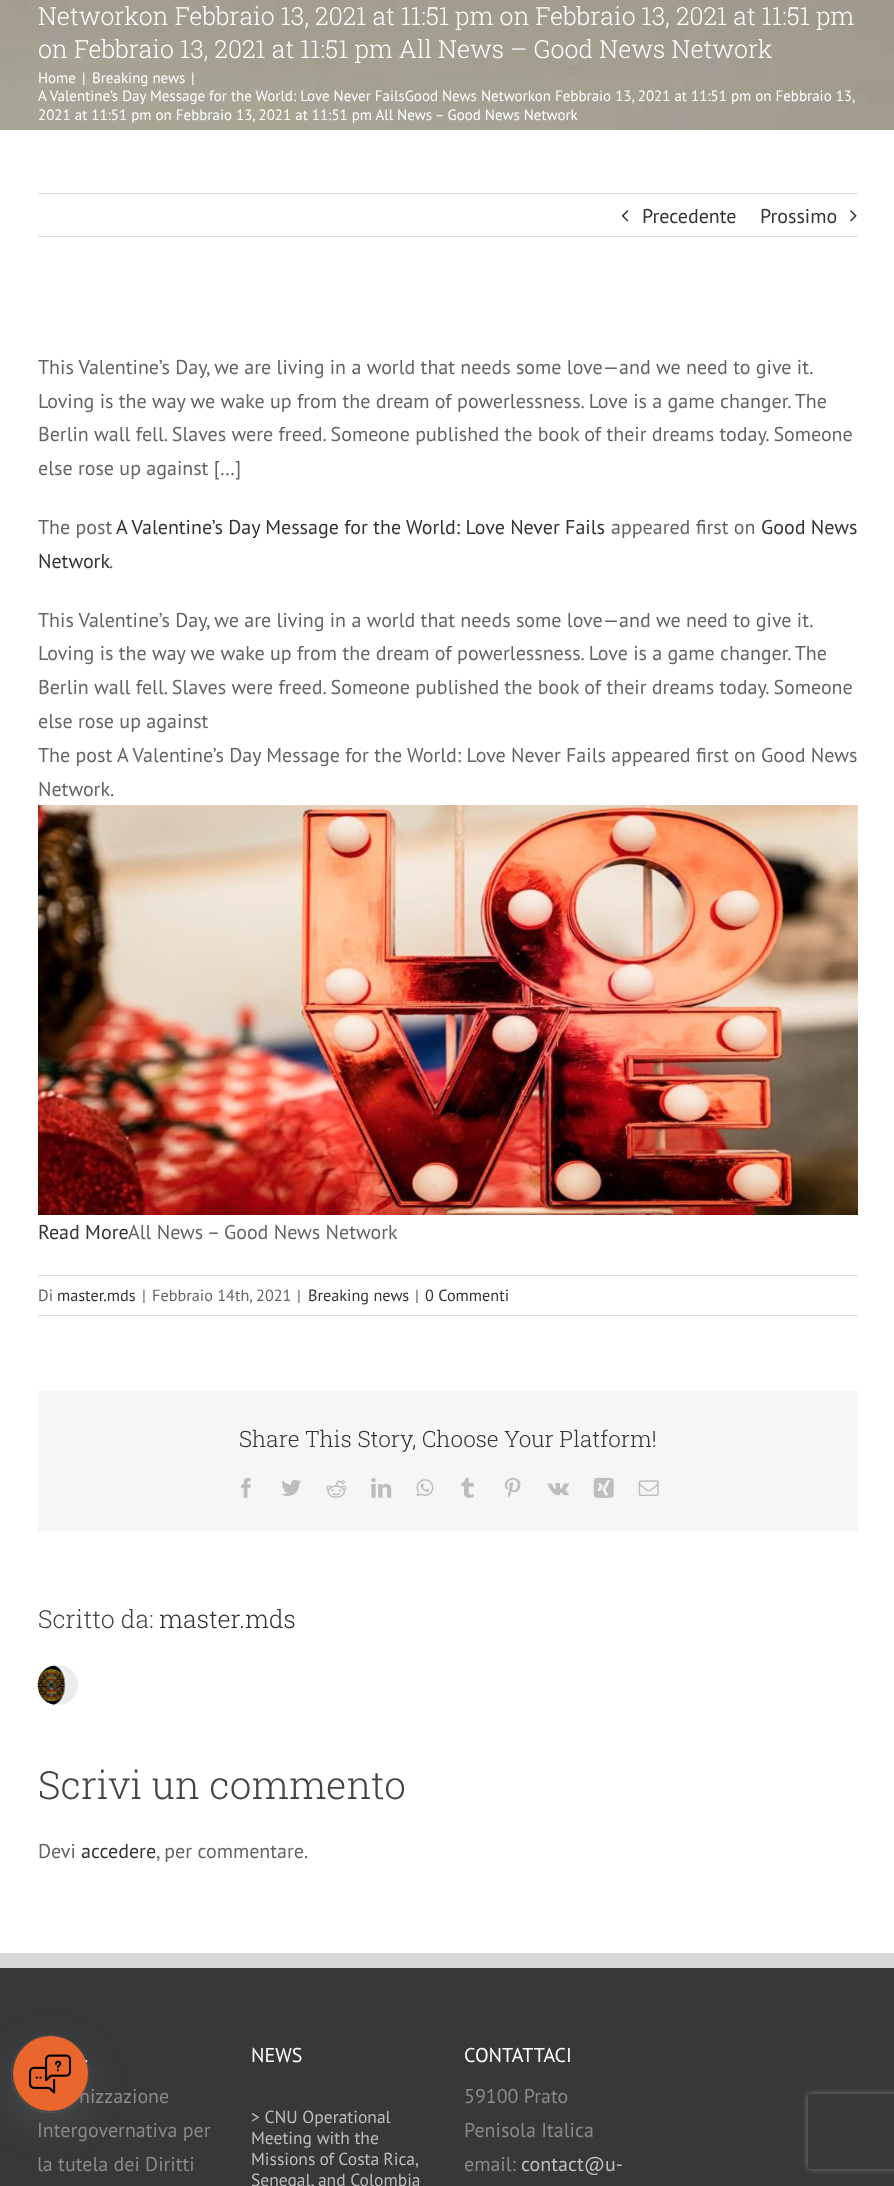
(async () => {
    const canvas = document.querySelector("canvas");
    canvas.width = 894;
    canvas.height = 2186;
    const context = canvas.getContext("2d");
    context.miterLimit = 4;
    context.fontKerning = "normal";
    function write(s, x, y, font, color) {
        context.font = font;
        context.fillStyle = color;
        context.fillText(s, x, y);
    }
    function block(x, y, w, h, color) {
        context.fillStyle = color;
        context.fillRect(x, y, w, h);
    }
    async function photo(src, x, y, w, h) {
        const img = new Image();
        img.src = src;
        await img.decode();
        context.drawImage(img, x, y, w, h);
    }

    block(0, 0, 894, 2186, "rgb(255, 255, 255)");
    await photo("media/1.png", 0, 0, 894, 130);
    write("Networkon Febbraio 13, 2021 at 11:51 pm on Febbraio 13, 2021 at 11:51 pm", 38, 25, "300 24.9px Roboto Slab", "rgb(255, 255, 255)");
    write("on Febbraio 13, 2021 at 11:51 pm All News – Good News Network", 38, 58, "300 24.9px Roboto Slab", "rgb(255, 255, 255)");
    write("Home", 38, 83, "15px PT Sans", "rgb(255, 255, 255)");
    write("|", 82, 83, "15px PT Sans", "rgb(255, 255, 255)");
    write("Breaking news", 92, 83, "15px PT Sans", "rgb(255, 255, 255)");
    write("|", 191, 83, "15px PT Sans", "rgb(255, 255, 255)");
    write("A Valentine’s Day Message for the World: Love Never FailsGood News Networkon Febbraio 13, 2021 at 11:51 pm on Febbraio 13,", 38, 101, "15px PT Sans", "rgb(255, 255, 255)");
    write("2021 at 11:51 pm on Febbraio 13, 2021 at 11:51 pm All News – Good News Network", 38, 120, "15px PT Sans", "rgb(255, 255, 255)");
    block(38, 193, 820, 1, "rgb(224, 222, 222)");
    block(38, 236, 820, 1, "rgb(224, 222, 222)");
    await photo("media/2.png", 621, 210, 8, 12);
    write("Precedente", 642, 223, "20px PT Sans", "rgb(51, 51, 51)");
    write("Prossimo", 760, 223, "20px PT Sans", "rgb(51, 51, 51)");
    await photo("media/3.png", 850, 210, 7, 12);
    write("This Valentine’s Day, we are living in a world that needs some love—and we need to give it.", 38, 374, "20px PT Sans", "rgb(100, 100, 100)");
    write("Loving is the way we wake up from the dream of powerlessness. Love is a game changer. The", 38, 408, "20px PT Sans", "rgb(100, 100, 100)");
    write("Berlin wall fell. Slaves were freed. Someone published the book of their dreams today. Someone", 38, 441, "20px PT Sans", "rgb(100, 100, 100)");
    write("else rose up against […]", 38, 475, "20px PT Sans", "rgb(100, 100, 100)");
    write("The post", 38, 534, "20px PT Sans", "rgb(100, 100, 100)");
    write("A Valentine’s Day Message for the World: Love Never Fails", 116, 534, "20px PT Sans", "rgb(51, 51, 51)");
    write("appeared first on", 611, 534, "20px PT Sans", "rgb(100, 100, 100)");
    write("Good News", 761, 534, "20px PT Sans", "rgb(51, 51, 51)");
    write("Network", 38, 568, "20px PT Sans", "rgb(51, 51, 51)");
    write(".", 109, 568, "20px PT Sans", "rgb(100, 100, 100)");
    write("This Valentine’s Day, we are living in a world that needs some love—and we need to give it.", 38, 627, "20px PT Sans", "rgb(100, 100, 100)");
    write("Loving is the way we wake up from the dream of powerlessness. Love is a game changer. The", 38, 660, "20px PT Sans", "rgb(100, 100, 100)");
    write("Berlin wall fell. Slaves were freed. Someone published the book of their dreams today. Someone", 38, 694, "20px PT Sans", "rgb(100, 100, 100)");
    write("else rose up against", 38, 728, "20px PT Sans", "rgb(100, 100, 100)");
    write("The post A Valentine’s Day Message for the World: Love Never Fails appeared first on Good News", 38, 762, "20px PT Sans", "rgb(100, 100, 100)");
    write("Network.", 38, 796, "20px PT Sans", "rgb(100, 100, 100)");
    await photo("media/4.png", 38, 805, 820, 410);
    write("Read More", 38, 1239, "20px PT Sans", "rgb(51, 51, 51)");
    write("All News – Good News Network", 128, 1239, "20px PT Sans", "rgb(100, 100, 100)");
    block(38, 1275, 820, 1, "rgb(224, 222, 222)");
    block(38, 1315, 820, 1, "rgb(224, 222, 222)");
    write("Di", 38, 1301, "16.25px PT Sans", "rgb(100, 100, 100)");
    write("master.mds", 57, 1301, "16.25px PT Sans", "rgb(51, 51, 51)");
    write("|", 142, 1301, "16.25px PT Sans", "rgb(100, 100, 100)");
    write("Febbraio 14th, 2021", 152, 1301, "16.25px PT Sans", "rgb(100, 100, 100)");
    write("|", 297, 1301, "16.25px PT Sans", "rgb(100, 100, 100)");
    write("Breaking news", 308, 1301, "16.25px PT Sans", "rgb(51, 51, 51)");
    write("|", 415, 1301, "16.25px PT Sans", "rgb(100, 100, 100)");
    write("0 Commenti", 425, 1301, "16.25px PT Sans", "rgb(51, 51, 51)");
    block(38, 1391, 820, 140, "rgb(246, 246, 246)");
    write("Share This Story, Choose Your Platform!", 239, 1447, "300 22.5px Roboto Slab", "rgb(51, 51, 51)");
    await photo("media/5.png", 241, 1477, 10, 21);
    await photo("media/6.png", 281, 1479, 20, 17);
    await photo("media/7.png", 326, 1480, 21, 18);
    await photo("media/8.png", 371, 1478, 21, 20);
    await photo("media/9.png", 416, 1479, 18, 18);
    await photo("media/10.png", 461, 1477, 13, 21);
    await photo("media/11.png", 504, 1477, 17, 21);
    await photo("media/12.png", 547, 1483, 22, 13);
    await photo("media/13.png", 593, 1477, 21, 21);
    await photo("media/14.png", 638, 1480, 21, 16);
    write("Scritto da:", 38, 1628, "300 24.9px Roboto Slab", "rgb(68, 68, 68)");
    write("master.mds", 159, 1628, "300 24.9px Roboto Slab", "rgb(51, 51, 51)");
    context.fillStyle = "rgb(235, 236, 237)";
    context.beginPath();
    context.arc(58, 1685, 20, 0, Math.PI * 2);
    context.fill();
    context.save();
    context.beginPath();
    context.roundRect(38, 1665, 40, 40, 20);
    context.clip();
    context.fillStyle = "rgba(255, 255, 255, 0.5)";
    context.filter = "blur(2px)";
    context.beginPath();
    context.roundRect(38, 1665, 27, 40, 13.5);
    context.fill();
    context.filter = "none";
    context.restore();
    context.beginPath();
    context.moveTo(54, 1665.5);
    context.bezierCurveTo(60, 1667.5, 65, 1675.5, 65, 1685);
    context.bezierCurveTo(65, 1694.5, 60, 1702.5, 54, 1704.5);
    context.bezierCurveTo(45, 1702.5, 38, 1694.5, 38, 1685);
    context.bezierCurveTo(38, 1675.5, 45, 1667.5, 54, 1665.5);
    context.closePath();
    context.fill();
    await photo("media/15.png", 37, 1665, 29, 40);
    write("Scrivi un commento", 38, 1799, "300 38.75px Roboto Slab", "rgb(68, 68, 68)");
    write("Devi", 38, 1858, "20px PT Sans", "rgb(100, 100, 100)");
    write("accedere", 81, 1858, "20px PT Sans", "rgb(51, 51, 51)");
    write(", per commentare.", 156, 1858, "20px PT Sans", "rgb(100, 100, 100)");
    block(0, 1968, 894, 218, "rgb(54, 56, 57)");
    block(0, 1953, 894, 15, "rgb(216, 216, 216)");
    write(".", 84, 2062, "20px PT Sans", "rgb(255, 255, 255)");
    write("nizzazione", 79, 2103, "20px PT Sans", "rgb(140, 137, 137)");
    write("Intergovernativa per", 37, 2137, "20px PT Sans", "rgb(140, 137, 137)");
    write("la tutela dei Diritti", 37, 2171, "20px PT Sans", "rgb(140, 137, 137)");
    write("NEWS", 251, 2062, "20px PT Sans", "rgb(255, 255, 255)");
    write("> CNU Operational", 251, 2123, "17.5px PT Sans", "rgb(191, 191, 191)");
    write("Meeting with the", 251, 2144, "17.5px PT Sans", "rgb(191, 191, 191)");
    context.wordSpacing = "-0.5px";
    write("Missions of Costa Rica,", 251, 2165, "17.5px PT Sans", "rgb(191, 191, 191)");
    context.wordSpacing = "0px";
    write("Senegal, and Colombia", 251, 2186, "17.5px PT Sans", "rgb(191, 191, 191)");
    write("CONTATTACI", 464, 2062, "20px PT Sans", "rgb(255, 255, 255)");
    write("59100 Prato", 464, 2103, "20px PT Sans", "rgb(140, 137, 137)");
    write("Penisola Italica", 464, 2137, "20px PT Sans", "rgb(140, 137, 137)");
    write("email:", 464, 2171, "20px PT Sans", "rgb(140, 137, 137)");
    write("contact@u-", 521, 2171, "20px PT Sans", "rgb(191, 191, 191)");
    context.beginPath();
    context.arc(50, 2074, 38.5, 0, Math.PI * 2);
    context.strokeStyle = "rgba(150, 150, 150, 0.2)";
    context.stroke();
    context.fillStyle = "rgba(150, 150, 150, 0.2)";
    context.filter = "blur(19px)";
    context.beginPath();
    context.roundRect(13, 2049, 75, 75, 37.5);
    context.fill();
    context.filter = "none";
    context.fillStyle = "rgb(235, 102, 45)";
    context.beginPath();
    context.arc(50.5, 2073.5, 37.5, 0, Math.PI * 2);
    context.fill();
    await photo("media/16.png", 29, 2054, 42, 40);
    context.save();
    context.beginPath();
    context.moveTo(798, 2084);
    context.lineTo(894, 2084);
    context.lineTo(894, 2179);
    context.lineTo(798, 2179);
    context.closePath();
    context.moveTo(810.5, 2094);
    context.lineTo(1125.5, 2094);
    context.bezierCurveTo(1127, 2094, 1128, 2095, 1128, 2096.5);
    context.lineTo(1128, 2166.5);
    context.bezierCurveTo(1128, 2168, 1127, 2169, 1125.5, 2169);
    context.lineTo(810.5, 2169);
    context.bezierCurveTo(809, 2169, 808, 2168, 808, 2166.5);
    context.lineTo(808, 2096.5);
    context.bezierCurveTo(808, 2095, 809, 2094, 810.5, 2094);
    context.closePath();
    context.clip("evenodd");
    context.fillStyle = "rgb(128, 128, 128)";
    context.filter = "blur(3px)";
    context.beginPath();
    context.roundRect(808, 2094, 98, 75, 2.5);
    context.fill();
    context.filter = "none";
    context.restore();
})();
